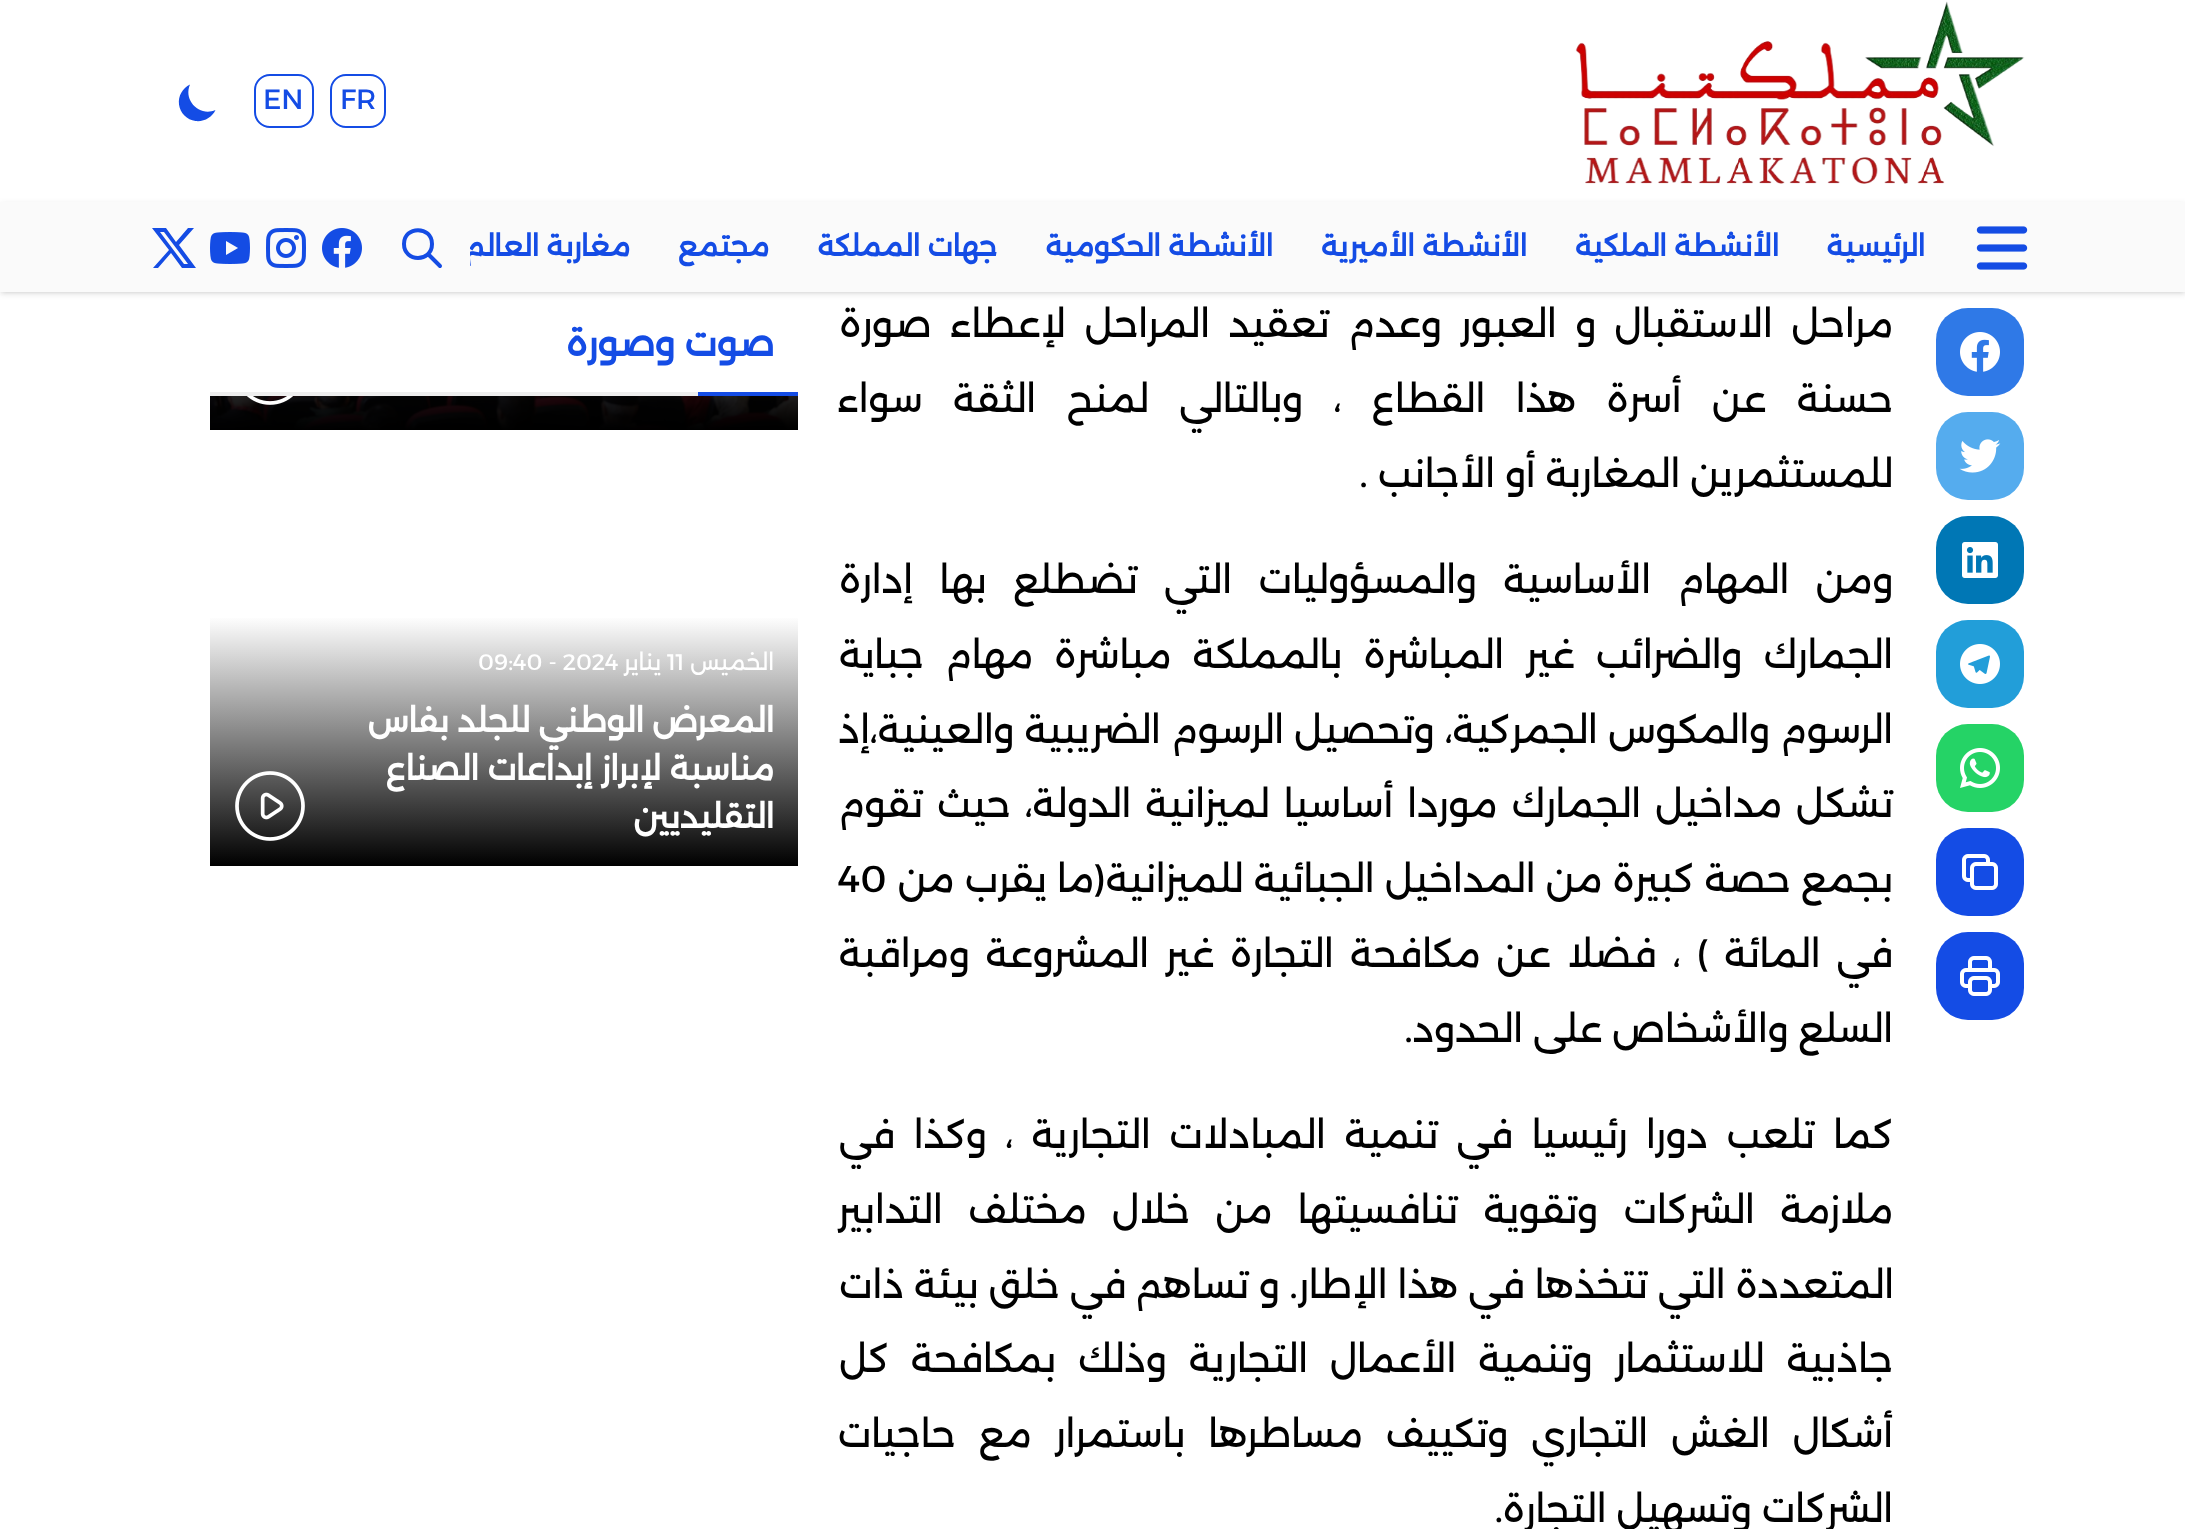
(async () => {
    const canvas = document.querySelector("canvas");
    canvas.width = 2185;
    canvas.height = 1529;
    const context = canvas.getContext("2d");
    context.miterLimit = 4;
    context.fontKerning = "normal";
    function write(s, x, y, font, color) {
        context.font = font;
        context.fillStyle = color;
        context.fillText(s, x, y);
    }
    function block(x, y, w, h, color) {
        context.fillStyle = color;
        context.fillRect(x, y, w, h);
    }
    function card(x, y, w, h, r, color) {
        context.fillStyle = color;
        context.beginPath();
        context.roundRect(x, y, w, h, r);
        context.fill();
    }
    async function photo(src, x, y, w, h) {
        const img = new Image();
        img.src = src;
        await img.decode();
        context.drawImage(img, x, y, w, h);
    }
    let gradient;

    block(0, 0, 2185, 1529, "rgb(255, 255, 255)");
    await photo("media/1.png", 1575, 1, 450, 183);
    context.beginPath();
    context.roundRect(331, 75, 54, 52, 15);
    context.strokeStyle = "rgb(20, 76, 229)";
    context.lineWidth = 2;
    context.stroke();
    write("FR", 340, 109, "28px Alexandria", "rgb(20, 76, 229)");
    context.beginPath();
    context.roundRect(255, 75, 58, 52, 15);
    context.stroke();
    write("EN", 263, 109, "28px Alexandria", "rgb(20, 76, 229)");
    context.beginPath();
    context.moveTo(215.5, 110);
    context.bezierCurveTo(199.5, 117, 183, 100.5, 190, 84.5);
    context.bezierCurveTo(182.5, 88, 178, 96, 179, 104.5);
    context.bezierCurveTo(180, 113, 187, 120, 195.5, 121);
    context.bezierCurveTo(204, 122, 212, 117.5, 215.5, 110);
    context.closePath();
    context.fill();
    context.fillStyle = "rgba(0, 0, 0, 0.1)";
    context.filter = "blur(2px)";
    context.beginPath();
    context.rect(2, 206, 2182, 86);
    context.fill();
    context.filter = "none";
    context.filter = "blur(3px)";
    context.beginPath();
    context.rect(0, 204, 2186, 90);
    context.fill();
    context.filter = "none";
    block(0, 202, 2185, 90, "rgb(250, 250, 250)");
    await photo("media/2.png", 1976, 226, 52, 44);
    context.direction = "rtl";
    write("الرئيسية", 1925, 256, "bold 28px Alexandria", "rgb(20, 76, 229)");
    write("الأنشطة الملكية", 1779, 256, "bold 28px Alexandria", "rgb(20, 76, 229)");
    write("الأنشطة الأميرية", 1527, 256, "bold 28px Alexandria", "rgb(20, 76, 229)");
    write("الأنشطة الحكومية", 1273, 256, "bold 28px Alexandria", "rgb(20, 76, 229)");
    write("جهات المملكة", 997, 256, "bold 28px Alexandria", "rgb(20, 76, 229)");
    write("مجتمع", 769, 256, "bold 28px Alexandria", "rgb(20, 76, 229)");
    context.save();
    context.beginPath();
    context.rect(470, 202, 1480, 90);
    context.clip();
    write("مغاربة العالم", 630, 256, "bold 28px Alexandria", "rgb(20, 76, 229)");
    context.restore();
    context.beginPath();
    context.moveTo(440, 266);
    context.lineTo(428, 254);
    context.moveTo(432, 244);
    context.bezierCurveTo(432, 262.5, 404, 262.5, 404, 244);
    context.bezierCurveTo(404, 225.5, 432, 225.5, 432, 244);
    context.closePath();
    context.strokeStyle = "rgb(20, 76, 228)";
    context.lineWidth = 4;
    context.lineCap = "round";
    context.lineJoin = "round";
    context.stroke();
    await photo("media/3.png", 322, 228, 40, 40);
    await photo("media/4.png", 266, 228, 40, 40);
    await photo("media/5.png", 210, 232, 40, 32);
    context.fillStyle = "rgb(20, 76, 228)";
    context.beginPath();
    context.moveTo(166, 228);
    context.lineTo(152, 228);
    context.lineTo(169, 250);
    context.lineTo(153, 268);
    context.lineTo(158, 268);
    context.lineTo(171, 253);
    context.lineTo(182, 268);
    context.lineTo(196, 268);
    context.lineTo(179, 245);
    context.lineTo(194, 228);
    context.lineTo(188, 228);
    context.lineTo(176, 242);
    context.closePath();
    context.moveTo(184, 264);
    context.lineTo(160, 232);
    context.lineTo(164, 232);
    context.lineTo(188, 264);
    context.closePath();
    context.fill();
    card(1936, 308, 88, 88, 32, "rgb(47, 121, 231)");
    await photo("media/6.png", 1960, 332, 40, 40);
    card(1936, 412, 88, 88, 32, "rgb(85, 172, 238)");
    await photo("media/7.png", 1959, 439, 42, 34);
    card(1936, 516, 88, 88, 32, "rgb(0, 119, 181)");
    await photo("media/8.png", 1962, 542, 36, 36);
    card(1936, 620, 88, 88, 32, "rgb(34, 158, 217)");
    await photo("media/9.png", 1960, 644, 40, 40);
    card(1936, 724, 88, 88, 32, "rgb(37, 211, 102)");
    await photo("media/10.png", 1960, 748, 40, 40);
    card(1936, 828, 88, 88, 32, "rgb(20, 76, 229)");
    await photo("media/11.png", 1962, 854, 36, 36);
    card(1936, 932, 88, 88, 32, "rgb(20, 76, 229)");
    await photo("media/12.png", 1960, 956, 40, 40);
    context.wordSpacing = "8.5px";
    write("مراحل الاستقبال و العبور وعدم تعقيد المراحل لإعطاء صورة", 1893, 337, "37.3px Alexandria", "rgb(0, 0, 0)");
    context.wordSpacing = "20.5px";
    write("حسنة عن أسرة هذا القطاع ، وبالتالي لمنح الثقة سواء", 1893, 412, "37.3px Alexandria", "rgb(0, 0, 0)");
    context.wordSpacing = "0px";
    write("للمستثمرين المغاربة أو الأجانب .", 1893, 487, "37.3px Alexandria", "rgb(0, 0, 0)");
    context.wordSpacing = "16.5px";
    write("ومن المهام الأساسية والمسؤوليات التي تضطلع بها إدارة", 1893, 593, "37.3px Alexandria", "rgb(0, 0, 0)");
    context.wordSpacing = "11.25px";
    write("الجمارك والضرائب غير المباشرة بالمملكة مباشرة مهام جباية", 1893, 668, "37.3px Alexandria", "rgb(0, 0, 0)");
    context.wordSpacing = "0.25px";
    write("الرسوم والمكوس الجمركية، وتحصيل الرسوم الضريبية والعينية،إذ", 1893, 743, "37.3px Alexandria", "rgb(0, 0, 0)");
    context.wordSpacing = "4px";
    write("تشكل مداخيل الجمارك موردا أساسيا لميزانية الدولة، حيث تقوم", 1893, 817, "37.3px Alexandria", "rgb(0, 0, 0)");
    context.wordSpacing = "0.25px";
    write("بجمع حصة كبيرة من المداخيل الجبائية للميزانية(ما يقرب من", 1893, 892, "37.3px Alexandria", "rgb(0, 0, 0)");
    context.wordSpacing = "0px";
    context.direction = "ltr";
    write("40", 838, 892, "37.3px Alexandria", "rgb(0, 0, 0)");
    context.wordSpacing = "6px";
    context.direction = "rtl";
    write("في المائة ) ، فضلا عن مكافحة التجارة غير المشروعة ومراقبة", 1893, 967, "37.3px Alexandria", "rgb(0, 0, 0)");
    context.wordSpacing = "0px";
    write("السلع والأشخاص على الحدود.", 1893, 1042, "37.3px Alexandria", "rgb(0, 0, 0)");
    context.wordSpacing = "8.5px";
    write("كما تلعب دورا رئيسيا في تنمية المبادلات التجارية ، وكذا في", 1893, 1148, "37.3px Alexandria", "rgb(0, 0, 0)");
    context.wordSpacing = "15.5px";
    write("ملازمة الشركات وتقوية تنافسيتها من خلال مختلف التدابير", 1893, 1223, "37.3px Alexandria", "rgb(0, 0, 0)");
    context.wordSpacing = "0px";
    write("المتعددة التي تتخذها في هذا الإطار. و تساهم في خلق بيئة ذات", 1894, 1298, "37.3px Alexandria", "rgb(0, 0, 0)");
    context.wordSpacing = "12px";
    write("جاذبية للاستثمار وتنمية الأعمال التجارية وذلك بمكافحة كل", 1893, 1372, "37.3px Alexandria", "rgb(0, 0, 0)");
    context.wordSpacing = "13px";
    write("أشكال الغش التجاري وتكييف مساطرها باستمرار مع حاجيات", 1893, 1447, "37.3px Alexandria", "rgb(0, 0, 0)");
    context.wordSpacing = "0px";
    write("الشركات وتسهيل التجارة.", 1893, 1522, "37.3px Alexandria", "rgb(0, 0, 0)");
    write("صوت وصورة", 774, 356, "bold 36px Alexandria", "rgb(20, 76, 229)");
    block(698, 392, 100, 4, "rgb(20, 76, 229)");
    block(210, 392, 488, 4, "rgb(238, 238, 238)");
    await photo("media/13.png", 210, 396, 588, 34);
    await photo("media/14.png", 247, 396, 46, 9);
    gradient = context.createLinearGradient(504, 866, 504, 616);
    gradient.addColorStop(0, "rgb(0, 0, 0)");
    gradient.addColorStop(1, "rgb(255, 255, 255)");
    context.fillStyle = gradient;
    context.fillRect(210, 618, 588, 248);
    write("الخميس", 774, 670, "22.5px Alexandria", "rgb(255, 255, 255)");
    context.direction = "ltr";
    write("11", 667, 670, "22.5px Alexandria", "rgb(255, 255, 255)");
    context.direction = "rtl";
    write("يناير", 661, 670, "22.5px Alexandria", "rgb(255, 255, 255)");
    context.direction = "ltr";
    write("09:40 - 2024", 478, 670, "22.5px Alexandria", "rgb(255, 255, 255)");
    context.direction = "rtl";
    write("المعرض الوطني للجلد بفاس", 774, 732, "bold 32px Alexandria", "rgb(255, 255, 255)");
    write("مناسبة لإبراز إبداعات الصناع", 774, 780, "bold 32px Alexandria", "rgb(255, 255, 255)");
    write("التقليديين", 774, 828, "bold 32px Alexandria", "rgb(255, 255, 255)");
    await photo("media/15.png", 235, 771, 70, 70);
})();
